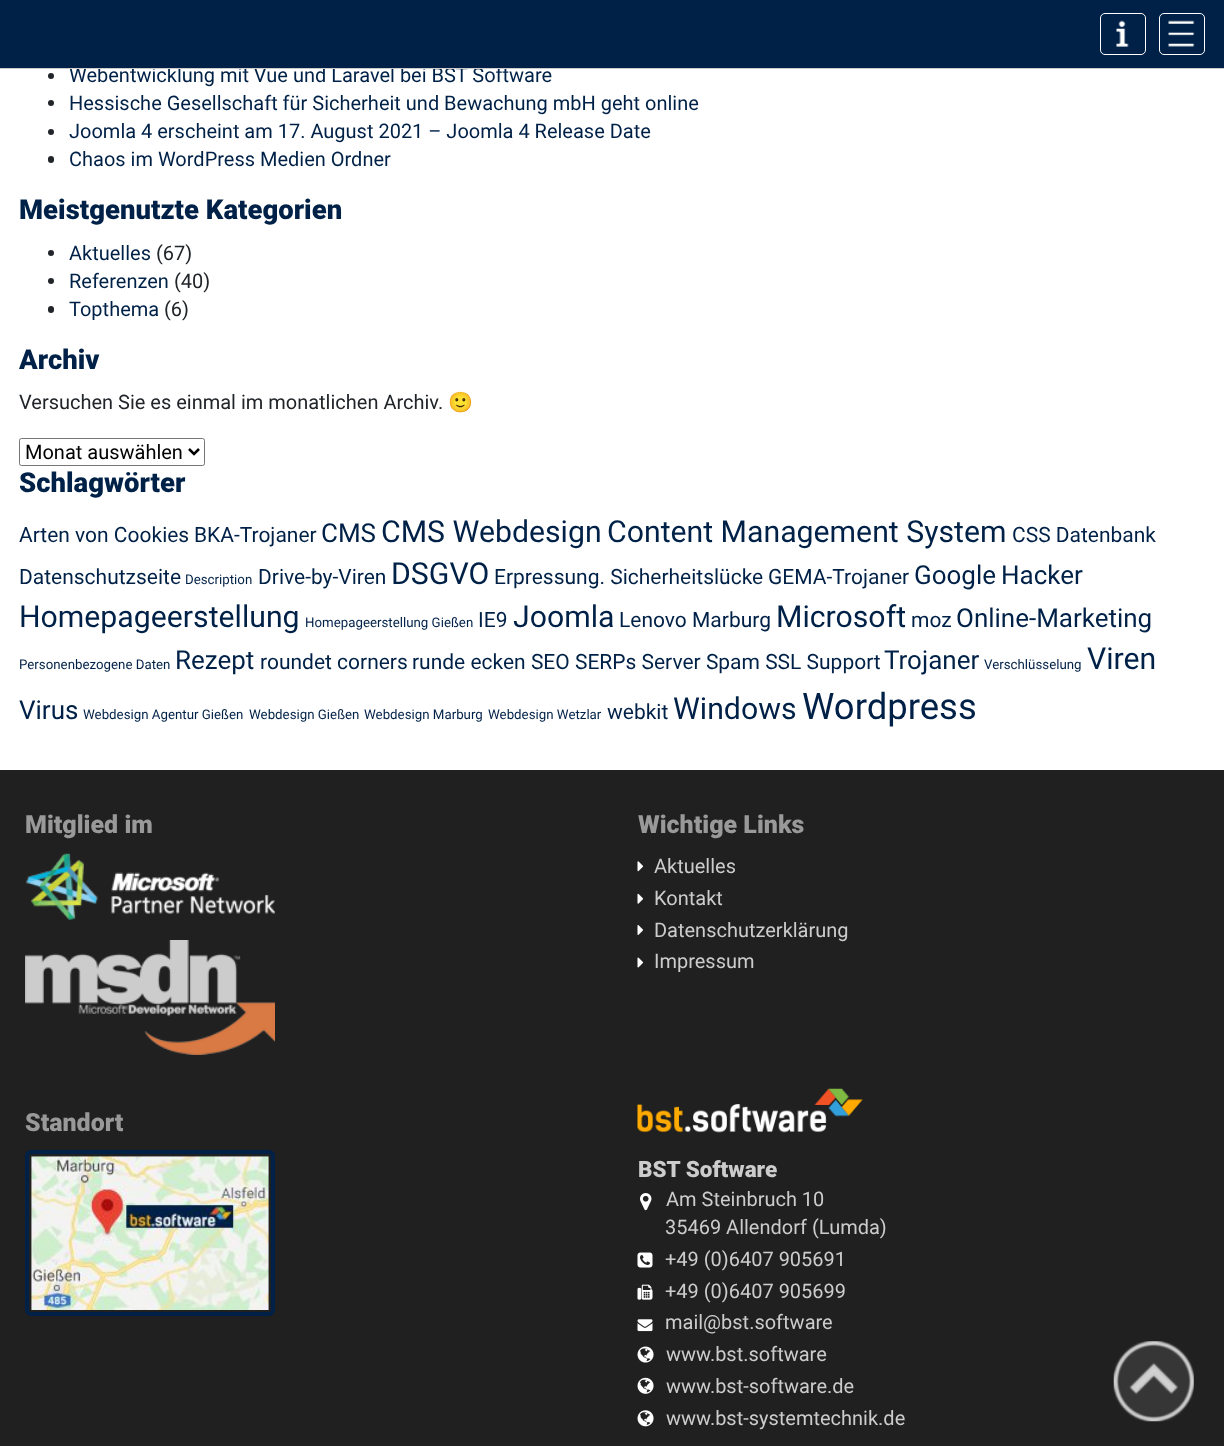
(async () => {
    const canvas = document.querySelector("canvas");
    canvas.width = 1224;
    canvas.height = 1446;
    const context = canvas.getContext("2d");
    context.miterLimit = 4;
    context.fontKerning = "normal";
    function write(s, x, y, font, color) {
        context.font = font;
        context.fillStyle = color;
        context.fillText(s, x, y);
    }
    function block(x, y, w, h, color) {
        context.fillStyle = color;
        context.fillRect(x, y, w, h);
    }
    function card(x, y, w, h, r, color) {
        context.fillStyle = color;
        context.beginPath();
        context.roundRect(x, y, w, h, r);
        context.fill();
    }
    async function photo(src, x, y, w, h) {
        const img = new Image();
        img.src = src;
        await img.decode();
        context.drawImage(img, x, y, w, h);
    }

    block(0, 0, 1224, 1446, "rgb(255, 255, 255)");
    block(0, 0, 1224, 68, "rgb(0, 33, 71)");
    write("Webentwicklung mit Vue und Laravel bei BST Software", 69, 82, "20px Roboto", "rgb(0, 33, 71)");
    block(0, 68, 1224, 1, "rgb(204, 204, 204)");
    context.beginPath();
    context.roundRect(1100.5, 13.5, 45, 41, 4.5);
    context.strokeStyle = "rgb(255, 255, 255)";
    context.stroke();
    await photo("media/1.png", 1116, 20, 13, 27);
    context.beginPath();
    context.roundRect(1159.5, 13.5, 45, 41, 4.5);
    context.stroke();
    await photo("media/2.png", 1168, 20, 27, 27);
    context.fillStyle = "rgb(33, 37, 41)";
    context.beginPath();
    context.arc(51, 76, 3, 0, Math.PI * 2);
    context.fill();
    context.beginPath();
    context.arc(51, 103, 3, 0, Math.PI * 2);
    context.fill();
    write("Hessische Gesellschaft für Sicherheit und Bewachung mbH geht online", 69, 110, "20px Roboto", "rgb(0, 33, 71)");
    context.fillStyle = "rgb(33, 37, 41)";
    context.beginPath();
    context.arc(51, 132, 3, 0, Math.PI * 2);
    context.fill();
    write("Joomla 4 erscheint am 17. August 2021 – Joomla 4 Release Date", 69, 138, "20px Roboto", "rgb(0, 33, 71)");
    card(48, 156, 6, 7, 3, "rgb(33, 37, 41)");
    write("Chaos im WordPress Medien Ordner", 69, 166, "20px Roboto", "rgb(0, 33, 71)");
    write("Meistgenutzte Kategorien", 19, 219, "900 27.5px Roboto", "rgb(0, 33, 71)");
    context.fillStyle = "rgb(33, 37, 41)";
    context.beginPath();
    context.arc(51, 253, 3, 0, Math.PI * 2);
    context.fill();
    write("Aktuelles", 69, 260, "20px Roboto", "rgb(0, 33, 71)");
    write("(67)", 156, 260, "20px Roboto", "rgb(33, 37, 41)");
    context.beginPath();
    context.arc(51, 281, 3, 0, Math.PI * 2);
    context.fill();
    write("Referenzen", 69, 288, "20px Roboto", "rgb(0, 33, 71)");
    write("(40)", 174, 288, "20px Roboto", "rgb(33, 37, 41)");
    card(48, 306, 6, 7, 3, "rgb(33, 37, 41)");
    write("Topthema", 69, 316, "20px Roboto", "rgb(0, 33, 71)");
    write("(6)", 164, 316, "20px Roboto", "rgb(33, 37, 41)");
    write("Archiv", 19, 369, "900 27.5px Roboto", "rgb(0, 33, 71)");
    write("Versuchen Sie es einmal im monatlichen Archiv.", 19, 409, "20px Roboto", "rgb(33, 37, 41)");
    write("🙂", 448, 409, "20px Noto Color Emoji", "rgb(33, 37, 41)");
    context.beginPath();
    context.roundRect(19.5, 438.5, 185, 27, 2);
    context.strokeStyle = "rgb(118, 118, 118)";
    context.stroke();
    context.beginPath();
    context.moveTo(189, 449);
    context.lineTo(194, 454);
    context.lineTo(199, 449);
    context.strokeStyle = "rgb(0, 0, 0)";
    context.lineWidth = 2.5;
    context.stroke();
    write("Monat auswählen", 25, 459, "20px Roboto", "rgb(0, 0, 0)");
    write("Schlagwörter", 19, 492, "900 27.5px Roboto", "rgb(0, 33, 71)");
    write("Arten von Cookies", 19, 542, "21px Roboto", "rgb(0, 33, 71)");
    write("BKA-Trojaner", 194, 542, "21px Roboto", "rgb(0, 33, 71)");
    write("CMS", 321, 542, "26px Roboto", "rgb(0, 33, 71)");
    write("CMS Webdesign", 381, 542, "30.25px Roboto", "rgb(0, 33, 71)");
    write("Content Management System", 607, 542, "30.25px Roboto", "rgb(0, 33, 71)");
    write("CSS Datenbank", 1012, 542, "21px Roboto", "rgb(0, 33, 71)");
    write("Datenschutzseite", 19, 584, "21px Roboto", "rgb(0, 33, 71)");
    write("Description", 185, 584, "13.3px Roboto", "rgb(0, 33, 71)");
    write("Drive-by-Viren", 258, 584, "21px Roboto", "rgb(0, 33, 71)");
    write("DSGVO", 391, 584, "30.25px Roboto", "rgb(0, 33, 71)");
    write("Erpressung. Sicherheitslücke", 494, 584, "21px Roboto", "rgb(0, 33, 71)");
    write("GEMA-Trojaner", 768, 584, "21px Roboto", "rgb(0, 33, 71)");
    write("Google", 914, 584, "26px Roboto", "rgb(0, 33, 71)");
    write("Hacker", 1001, 584, "26px Roboto", "rgb(0, 33, 71)");
    write("Homepageerstellung", 19, 627, "30.25px Roboto", "rgb(0, 33, 71)");
    write("Homepageerstellung Gießen", 305, 627, "13.3px Roboto", "rgb(0, 33, 71)");
    write("IE9", 478, 627, "21px Roboto", "rgb(0, 33, 71)");
    write("Joomla", 513, 627, "30.25px Roboto", "rgb(0, 33, 71)");
    write("Lenovo Marburg", 619, 627, "21px Roboto", "rgb(0, 33, 71)");
    write("Microsoft", 776, 627, "30.25px Roboto", "rgb(0, 33, 71)");
    write("moz", 911, 627, "21px Roboto", "rgb(0, 33, 71)");
    write("Online-Marketing", 956, 627, "26px Roboto", "rgb(0, 33, 71)");
    write("Personenbezogene Daten", 19, 669, "13.3px Roboto", "rgb(0, 33, 71)");
    write("Rezept", 175, 669, "26px Roboto", "rgb(0, 33, 71)");
    write("roundet corners", 260, 669, "21px Roboto", "rgb(0, 33, 71)");
    write("runde ecken SEO SERPs Server Spam SSL Support", 412, 669, "21px Roboto", "rgb(0, 33, 71)");
    write("Trojaner", 884, 669, "26px Roboto", "rgb(0, 33, 71)");
    write("Verschlüsselung", 984, 669, "13.3px Roboto", "rgb(0, 33, 71)");
    write("Viren", 1087, 669, "30.25px Roboto", "rgb(0, 33, 71)");
    write("Virus", 19, 719, "26px Roboto", "rgb(0, 33, 71)");
    write("Webdesign Agentur Gießen", 83, 719, "13.3px Roboto", "rgb(0, 33, 71)");
    write("Webdesign Gießen", 249, 719, "13.3px Roboto", "rgb(0, 33, 71)");
    write("Webdesign Marburg", 364, 719, "13.3px Roboto", "rgb(0, 33, 71)");
    write("Webdesign Wetzlar", 488, 719, "13.3px Roboto", "rgb(0, 33, 71)");
    write("webkit", 607, 719, "21px Roboto", "rgb(0, 33, 71)");
    write("Windows", 673, 719, "30.25px Roboto", "rgb(0, 33, 71)");
    write("Wordpress", 802, 719, "36.5px Roboto", "rgb(0, 33, 71)");
    block(0, 770, 1224, 676, "rgb(32, 32, 32)");
    write("Mitglied im", 25, 833, "900 25px Roboto", "rgb(153, 153, 153)");
    await photo("media/3.png", 26, 853, 249, 67);
    await photo("media/4.png", 25, 940, 250, 115);
    write("Wichtige Links", 638, 833, "900 25px Roboto", "rgb(153, 153, 153)");
    await photo("media/5.png", 637, 861, 7, 11);
    write("Aktuelles", 654, 873, "20px Roboto", "rgb(204, 204, 204)");
    await photo("media/6.png", 637, 893, 7, 11);
    write("Kontakt", 654, 905, "20px Roboto", "rgb(204, 204, 204)");
    await photo("media/7.png", 637, 925, 6, 10);
    write("Datenschutzerklärung", 654, 937, "20px Roboto", "rgb(204, 204, 204)");
    await photo("media/8.png", 637, 957, 7, 11);
    write("Impressum", 654, 968, "20px Roboto", "rgb(204, 204, 204)");
    write("Standort", 25, 1131, "900 25px Roboto", "rgb(153, 153, 153)");
    context.beginPath();
    context.roundRect(27, 1152, 246, 162, 4);
    context.strokeStyle = "rgb(0, 33, 71)";
    context.lineWidth = 4;
    context.stroke();
    await photo("media/9.png", 31, 1156, 238, 154);
    await photo("media/10.png", 637, 1088, 226, 45);
    write("BST Software", 638, 1177, "900 22.5px Roboto", "rgb(204, 204, 204)");
    await photo("media/11.png", 640, 1193, 12, 18);
    write("Am Steinbruch 10", 666, 1206, "20px Roboto", "rgb(204, 204, 204)");
    write("35469 Allendorf (Lumda)", 665, 1234, "20px Roboto", "rgb(204, 204, 204)");
    await photo("media/12.png", 637, 1252, 16, 16);
    write("+49 (0)6407 905691", 665, 1266, "20px Roboto", "rgb(204, 204, 204)");
    await photo("media/13.png", 637, 1284, 16, 16);
    write("+49 (0)6407 905699", 665, 1298, "20px Roboto", "rgb(204, 204, 204)");
    await photo("media/14.png", 637, 1319, 16, 13);
    write("mail@bst.software", 665, 1329, "20px Roboto", "rgb(204, 204, 204)");
    await photo("media/15.png", 637, 1346, 17, 17);
    write("www.bst.software", 666, 1361, "20px Roboto", "rgb(204, 204, 204)");
    await photo("media/16.png", 637, 1377, 17, 17);
    write("www.bst-software.de", 666, 1393, "20px Roboto", "rgb(204, 204, 204)");
    await photo("media/17.png", 637, 1410, 17, 17);
    write("www.bst-systemtechnik.de", 666, 1425, "20px Roboto", "rgb(204, 204, 204)");
    await photo("media/18.png", 1113, 1341, 81, 81);
})();
